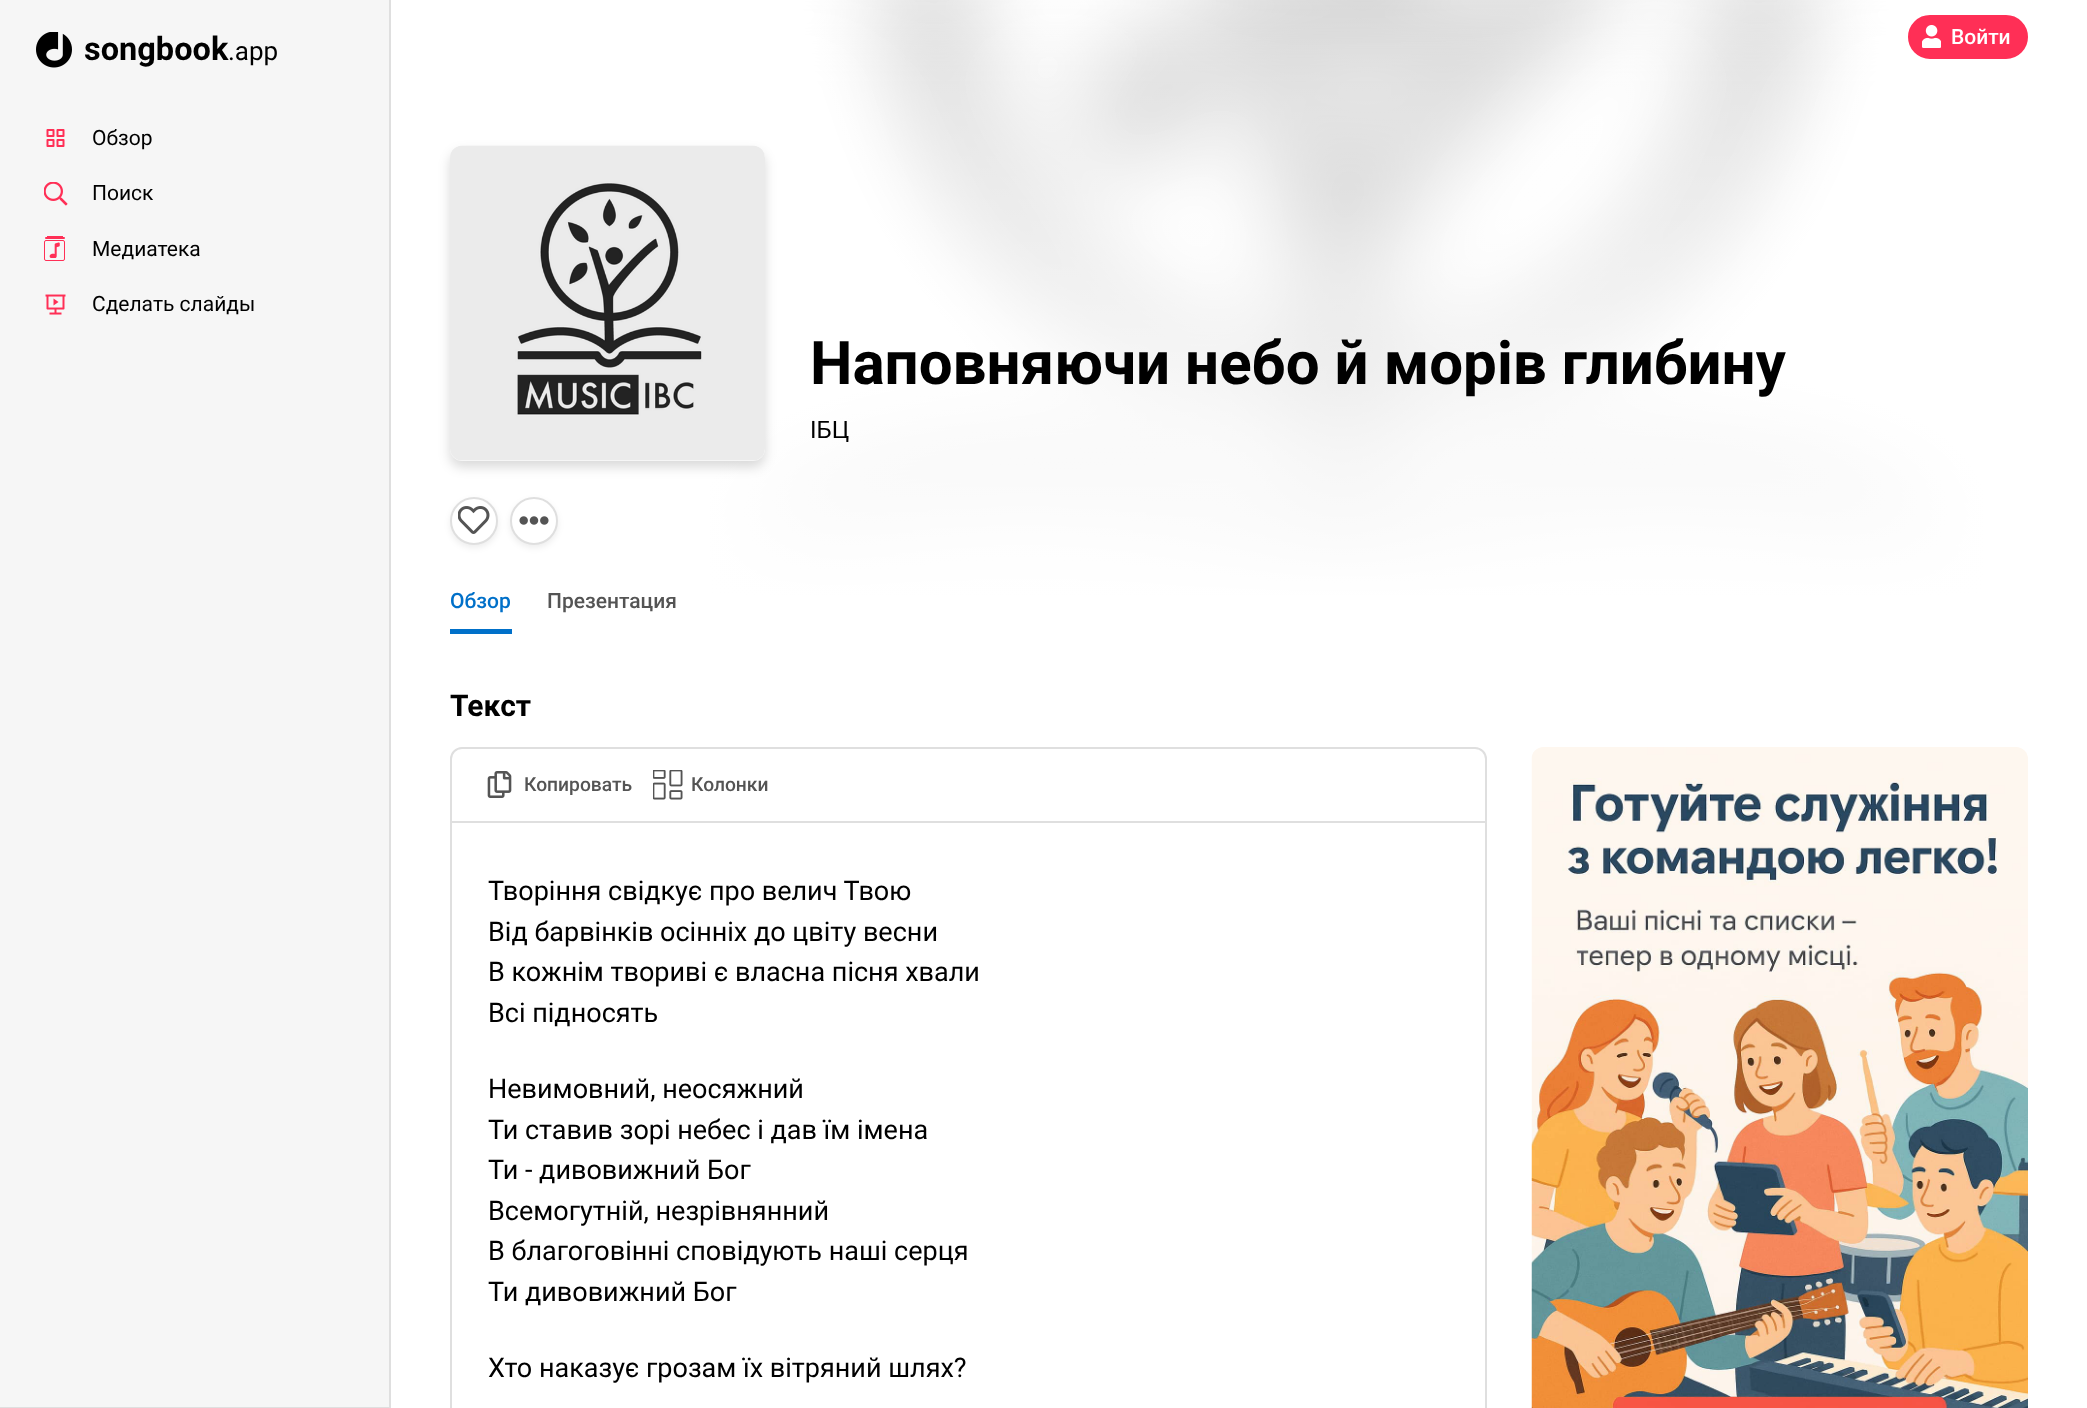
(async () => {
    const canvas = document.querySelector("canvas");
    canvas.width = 2087;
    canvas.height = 1408;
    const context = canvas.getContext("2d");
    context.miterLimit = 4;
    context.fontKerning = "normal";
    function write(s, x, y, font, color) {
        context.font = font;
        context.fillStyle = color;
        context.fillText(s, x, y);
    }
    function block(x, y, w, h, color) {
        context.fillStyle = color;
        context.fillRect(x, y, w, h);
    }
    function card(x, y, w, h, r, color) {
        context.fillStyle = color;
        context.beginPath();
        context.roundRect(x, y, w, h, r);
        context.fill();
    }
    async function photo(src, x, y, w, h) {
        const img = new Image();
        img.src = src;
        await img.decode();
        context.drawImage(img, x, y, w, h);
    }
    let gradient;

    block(0, 0, 2087, 1408, "rgb(255, 255, 255)");
    block(0, 0, 389, 1407, "rgb(246, 246, 246)");
    block(389, 0, 2, 1408, "rgb(223, 223, 223)");
    block(0, 1407, 390, 1, "rgb(223, 223, 223)");
    await photo("media/1.png", 36, 32, 36, 36);
    write("songbook", 84, 60, "bold 32.5px Roboto", "rgb(0, 0, 0)");
    write(".app", 228, 60, "26px Roboto", "rgb(0, 0, 0)");
    await photo("media/2.png", 46, 129, 19, 18);
    write("Обзор", 92, 145, "21px Roboto", "rgb(0, 0, 0)");
    await photo("media/3.png", 44, 182, 24, 24);
    write("Поиск", 92, 200, "21px Roboto", "rgb(0, 0, 0)");
    block(47, 236, 16, 1, "rgb(255, 47, 86)");
    card(45, 237, 20, 2, 1, "rgb(255, 47, 86)");
    context.beginPath();
    context.roundRect(44.5, 240.5, 20, 20, 1.5);
    context.strokeStyle = "rgb(255, 47, 86)";
    context.stroke();
    await photo("media/4.png", 49, 242, 11, 16);
    write("Медиатека", 92, 256, "21px Roboto", "rgb(0, 0, 0)");
    await photo("media/5.png", 45, 294, 21, 21);
    write("Сделать слайды", 92, 311, "21px Roboto", "rgb(0, 0, 0)");
    await photo("media/7.png", 709, 0, 1274, 595);
    gradient = context.createLinearGradient(1239, -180, 1239, 600);
    gradient.addColorStop(0, "rgba(255, 255, 255, 0)");
    gradient.addColorStop(1, "rgb(255, 255, 255)");
    context.fillStyle = gradient;
    context.fillRect(709, 0, 1274, 595);
    context.fillStyle = "rgb(255, 47, 86)";
    context.beginPath();
    context.roundRect(1909, 16, 118, 42, 21);
    context.fill();
    context.lineWidth = 2;
    context.stroke();
    await photo("media/6.png", 1922, 25, 19, 23);
    write("Войти", 1951, 44, "500 21px Roboto", "rgb(255, 255, 255)");
    context.fillStyle = "rgba(0, 0, 0, 0.15)";
    context.filter = "blur(6px)";
    context.beginPath();
    context.roundRect(450, 152, 315, 315, 12);
    context.fill();
    context.filter = "none";
    card(450, 146, 315, 315, 12, "rgb(246, 246, 246)");
    await photo("media/8.png", 450, 145, 315, 315);
    write("Наповняючи небо й морів глибину", 810, 384, "bold 60px Roboto", "rgb(0, 0, 0)");
    write("ІБЦ", 810, 438, "24px Roboto", "rgb(0, 0, 0)");
    context.fillStyle = "rgba(0, 0, 0, 0.07)";
    context.filter = "blur(3px)";
    context.beginPath();
    context.roundRect(450, 500, 48, 48, 24);
    context.fill();
    context.filter = "none";
    context.fillStyle = "rgb(255, 255, 255)";
    context.beginPath();
    context.arc(474, 521, 23, 0, Math.PI * 2);
    context.fill();
    context.strokeStyle = "rgb(223, 223, 223)";
    context.stroke();
    await photo("media/9.png", 458, 506, 32, 28);
    context.fillStyle = "rgba(0, 0, 0, 0.07)";
    context.filter = "blur(3px)";
    context.beginPath();
    context.roundRect(510, 500, 48, 48, 24);
    context.fill();
    context.filter = "none";
    context.fillStyle = "rgb(255, 255, 255)";
    context.beginPath();
    context.arc(534, 521, 23, 0, Math.PI * 2);
    context.fill();
    context.stroke();
    await photo("media/10.png", 519, 516, 30, 9);
    write("Обзор", 450, 608, "500 21px Roboto", "rgb(0, 112, 201)");
    block(450, 629, 62, 5, "rgb(0, 112, 201)");
    write("Презентация", 547, 608, "500 21px Roboto", "rgb(84, 84, 84)");
    write("Текст", 450, 716, "bold 30px Roboto", "rgb(0, 0, 0)");
    context.beginPath();
    context.roundRect(451, 748, 1035, 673, 11);
    context.stroke();
    block(452, 821, 1033, 2, "rgb(223, 223, 223)");
    await photo("media/11.png", 487, 771, 25, 27);
    write("Копировать", 524, 791, "500 19.25px Roboto", "rgb(84, 84, 84)");
    await photo("media/12.png", 653, 770, 30, 30);
    write("Колонки", 691, 791, "500 19.25px Roboto", "rgb(84, 84, 84)");
    write("Творіння свідкує про велич Твою", 488, 900, "27px Roboto", "rgb(0, 0, 0)");
    write("Від барвінків осінніх до цвіту весни", 488, 941, "27px Roboto", "rgb(0, 0, 0)");
    write("В кожнім твориві є власна пісня хвали", 488, 981, "27px Roboto", "rgb(0, 0, 0)");
    write("Всі підносять", 488, 1022, "27px Roboto", "rgb(0, 0, 0)");
    write("Невимовний, неосяжний", 488, 1098, "27px Roboto", "rgb(0, 0, 0)");
    write("Ти ставив зорі небес і дав їм імена", 488, 1139, "27px Roboto", "rgb(0, 0, 0)");
    write("Ти - дивовижний Бог", 488, 1179, "27px Roboto", "rgb(0, 0, 0)");
    write("Всемогутній, незрівнянний", 488, 1220, "27px Roboto", "rgb(0, 0, 0)");
    write("В благоговінні сповідують наші серця", 488, 1260, "27px Roboto", "rgb(0, 0, 0)");
    write("Ти дивовижний Бог", 488, 1301, "27px Roboto", "rgb(0, 0, 0)");
    write("Хто наказує грозам їх вітряний шлях?", 488, 1377, "27px Roboto", "rgb(0, 0, 0)");
    await photo("media/13.png", 1531, 747, 497, 661);
})();
